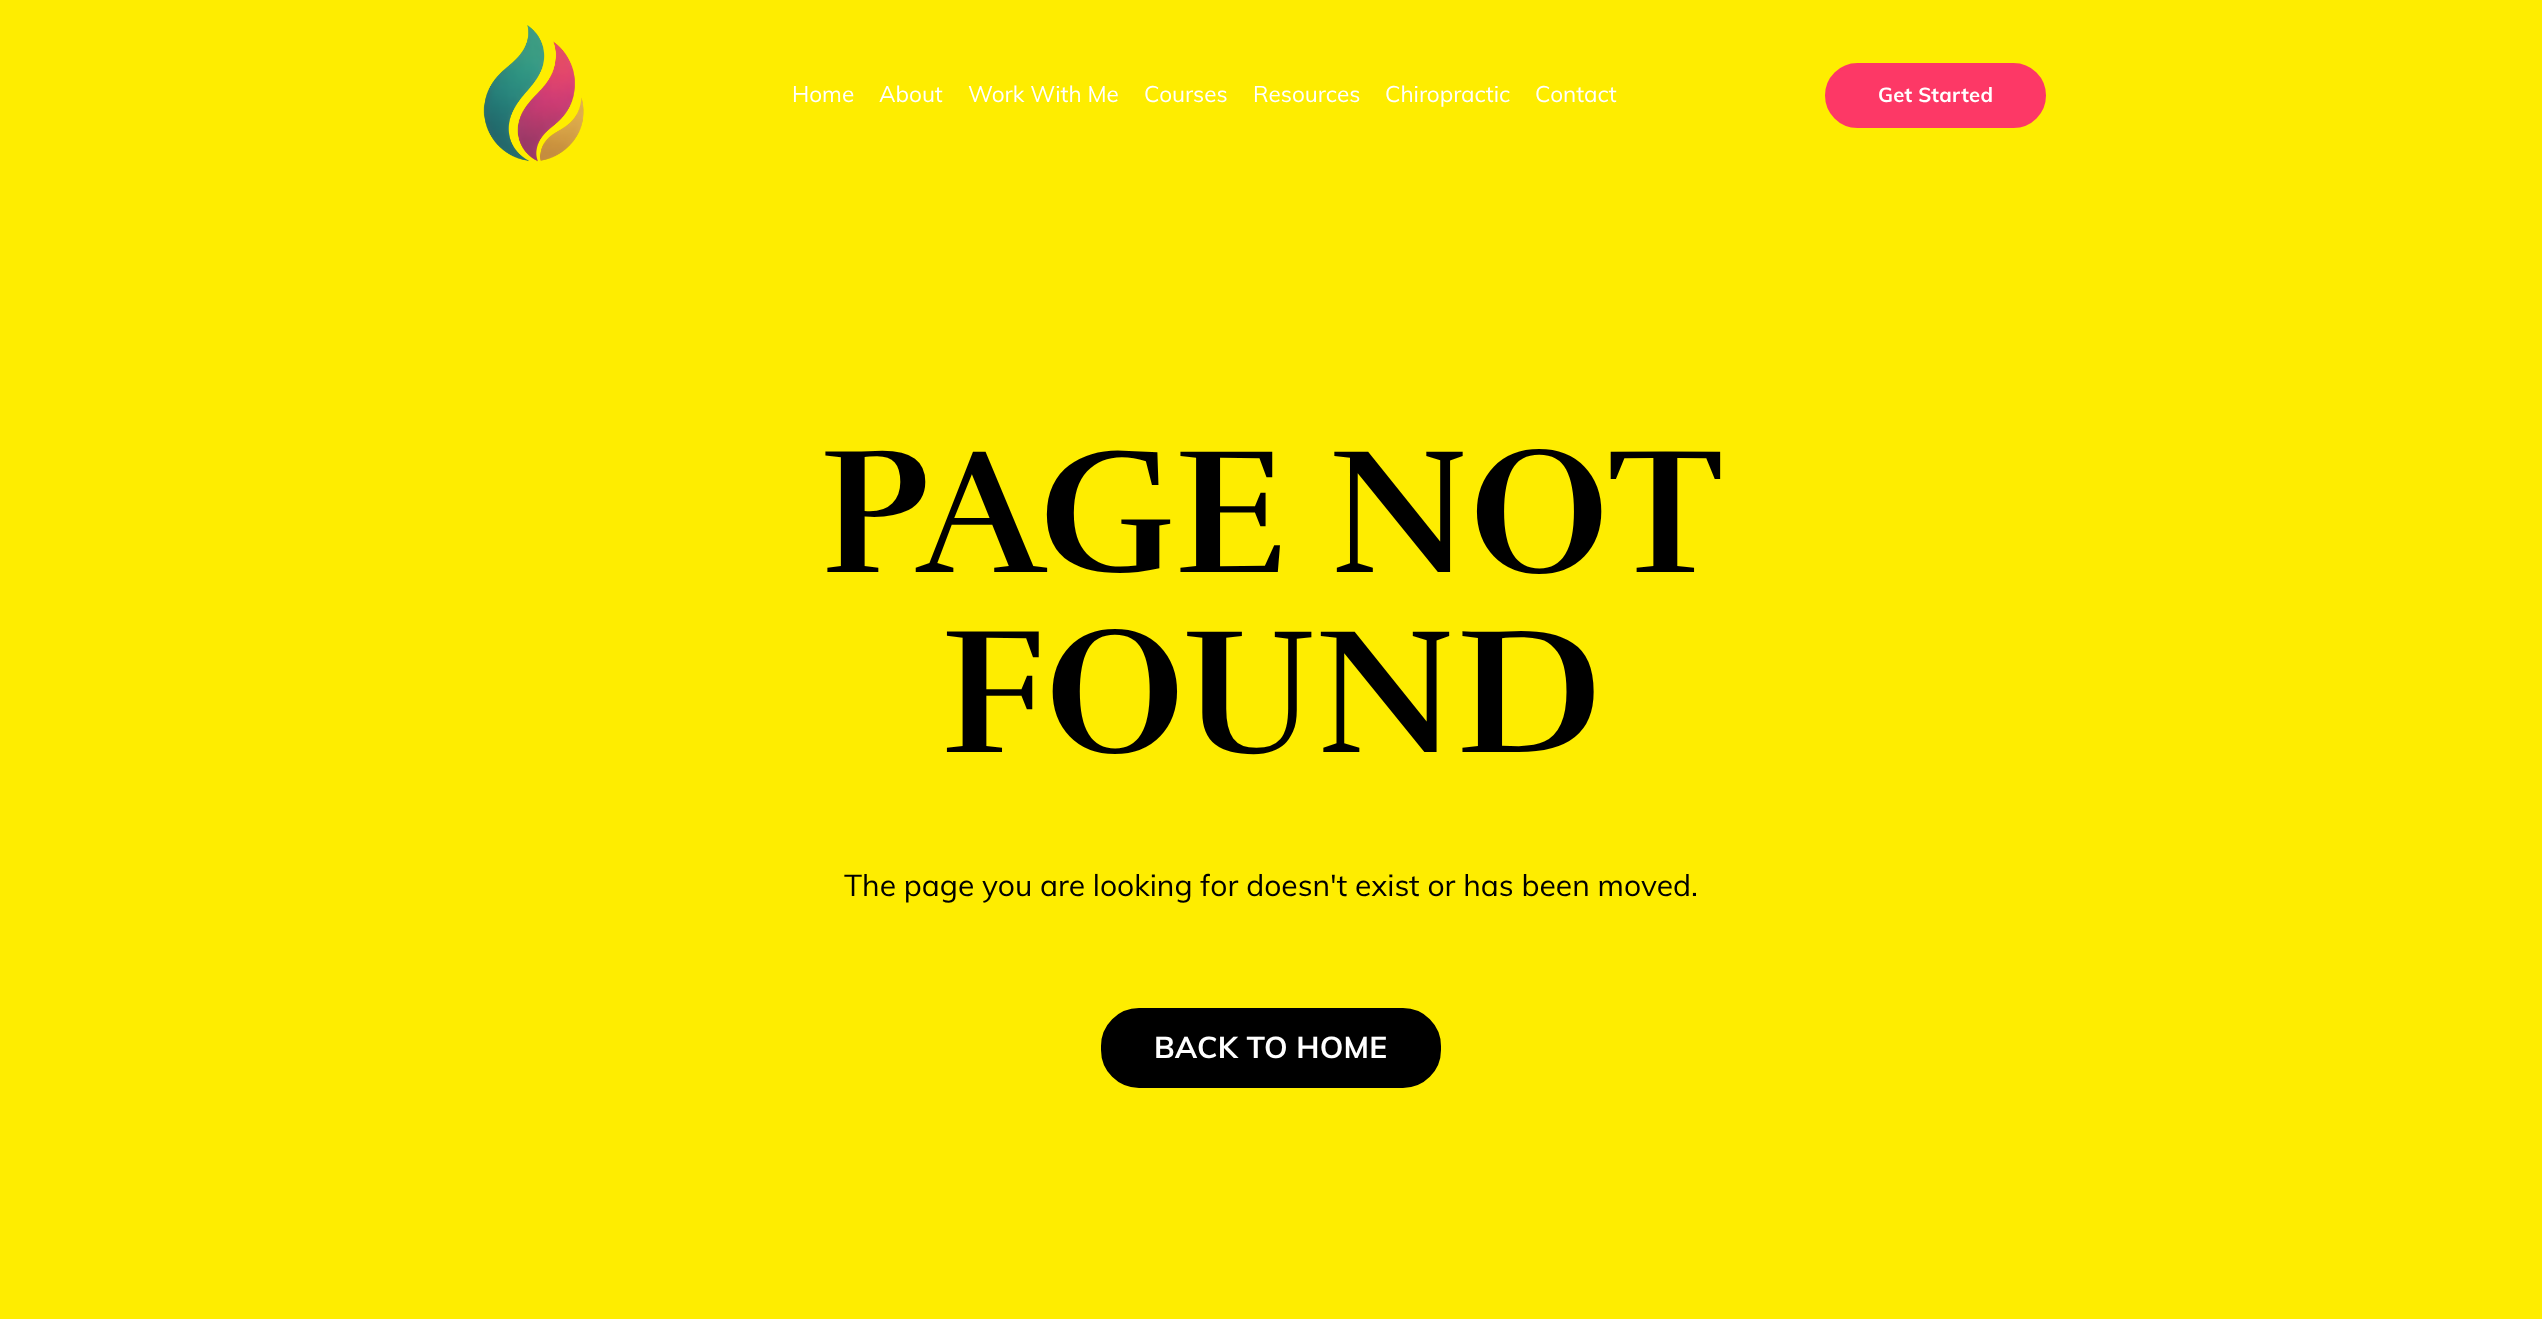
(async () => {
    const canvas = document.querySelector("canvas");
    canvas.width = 2542;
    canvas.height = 1319;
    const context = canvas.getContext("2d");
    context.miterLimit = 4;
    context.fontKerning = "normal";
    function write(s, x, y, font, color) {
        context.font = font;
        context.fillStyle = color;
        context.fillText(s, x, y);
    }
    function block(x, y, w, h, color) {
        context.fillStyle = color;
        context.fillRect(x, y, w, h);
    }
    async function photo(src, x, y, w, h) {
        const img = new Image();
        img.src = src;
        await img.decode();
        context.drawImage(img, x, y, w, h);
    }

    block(0, 0, 2542, 1319, "rgb(254, 237, 0)");
    await photo("media/1.png", 483, 25, 101, 137);
    write("Home", 792, 102, "22.5px Muli", "rgb(255, 255, 255)");
    write("About", 879, 102, "22.5px Muli", "rgb(255, 255, 255)");
    write("Work With Me", 968, 102, "22.5px Muli", "rgb(255, 255, 255)");
    write("Courses", 1144, 102, "22.5px Muli", "rgb(255, 255, 255)");
    write("Resources", 1253, 102, "22.5px Muli", "rgb(255, 255, 255)");
    write("Chiropractic", 1385, 102, "22.5px Muli", "rgb(255, 255, 255)");
    write("Contact", 1535, 102, "22.5px Muli", "rgb(255, 255, 255)");
    context.fillStyle = "rgb(253, 56, 102)";
    context.beginPath();
    context.roundRect(1826.5, 64.5, 218, 62, 31);
    context.fill();
    context.strokeStyle = "rgb(253, 56, 102)";
    context.lineWidth = 3;
    context.stroke();
    context.letterSpacing = "0.25px";
    write("Get Started", 1878, 102, "bold 20.25px Muli", "rgb(255, 255, 255)");
    context.letterSpacing = "0px";
    write("PAGE NOT", 820, 572, "bold 180px Rufina", "rgb(0, 0, 0)");
    write("FOUND", 941, 752, "bold 180px Rufina", "rgb(0, 0, 0)");
    write("The page you are looking for doesn't exist or has been moved.", 844, 896, "30px Muli", "rgb(0, 0, 0)");
    context.beginPath();
    context.roundRect(1102.5, 1009.5, 337, 77, 36.5);
    context.fill();
    context.strokeStyle = "rgb(0, 0, 0)";
    context.stroke();
    context.letterSpacing = "0.25px";
    write("BACK TO HOME", 1154, 1058, "bold 30px Muli", "rgb(255, 255, 255)");
})();
